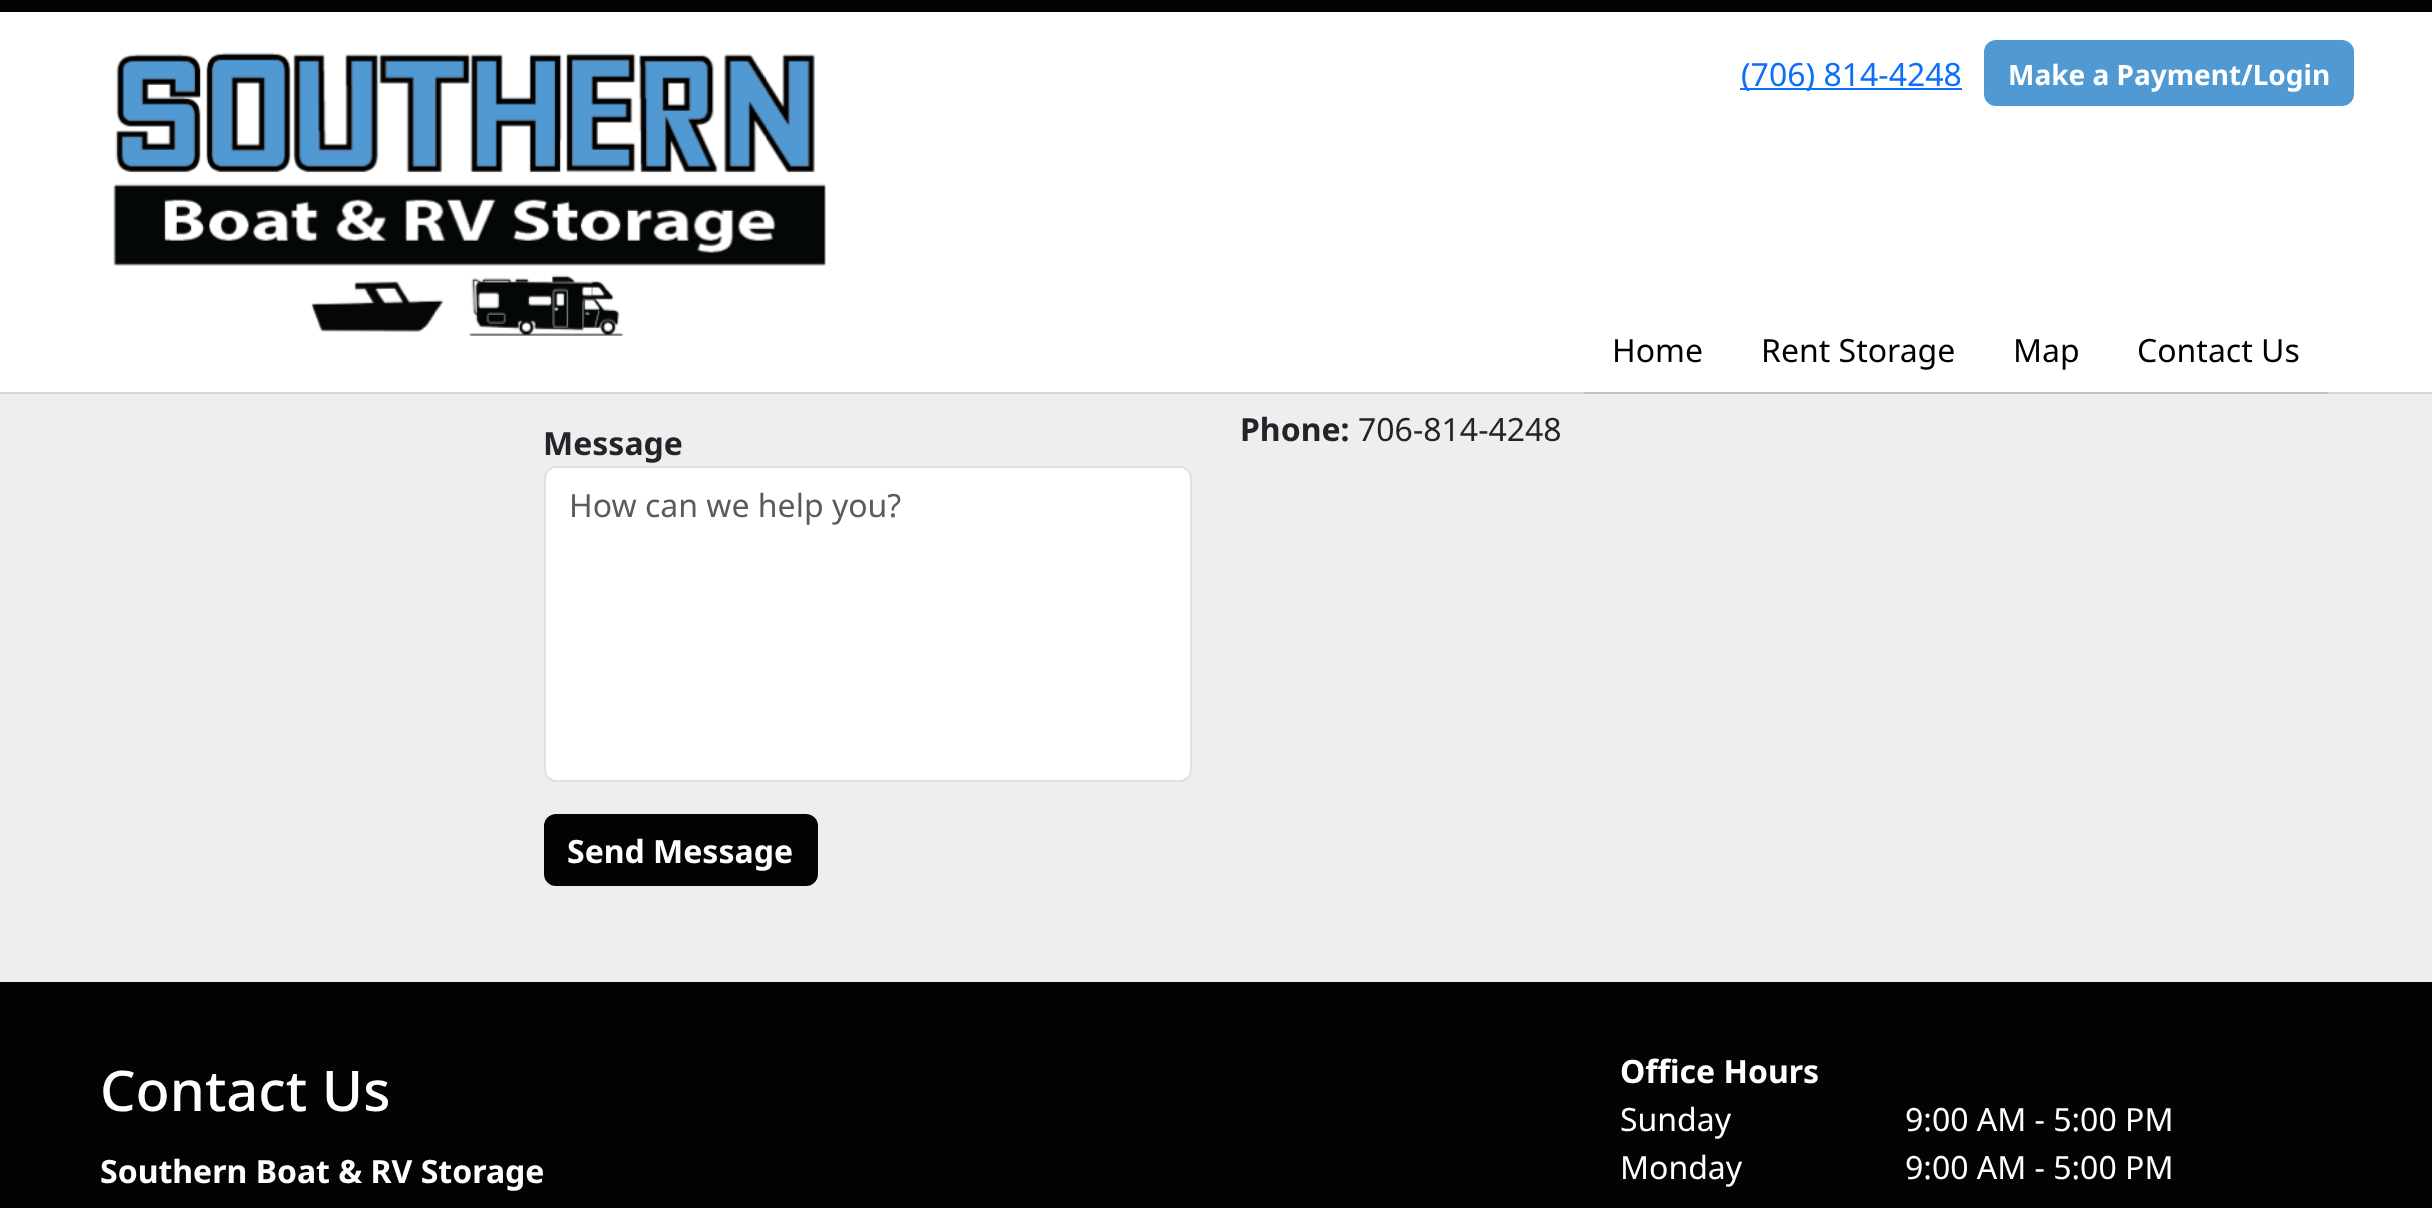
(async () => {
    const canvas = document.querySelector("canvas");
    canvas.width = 2432;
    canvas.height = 1208;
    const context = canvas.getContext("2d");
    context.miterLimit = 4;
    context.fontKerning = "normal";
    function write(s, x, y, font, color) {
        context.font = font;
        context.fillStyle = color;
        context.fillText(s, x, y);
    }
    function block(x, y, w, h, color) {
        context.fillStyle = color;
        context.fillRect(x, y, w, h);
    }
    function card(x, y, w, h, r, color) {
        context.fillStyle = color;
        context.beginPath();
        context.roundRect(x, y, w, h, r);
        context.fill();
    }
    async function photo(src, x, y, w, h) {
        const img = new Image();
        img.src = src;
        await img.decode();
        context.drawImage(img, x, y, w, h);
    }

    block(0, 0, 2432, 1208, "rgb(238, 238, 238)");
    block(0, 392, 2432, 2, "rgb(214, 214, 214)");
    block(0, 12, 2432, 380, "rgb(255, 255, 255)");
    block(0, 0, 2432, 12, "rgb(3, 3, 2)");
    await photo("media/1.png", 113, 52, 713, 284);
    block(1740, 88, 222, 2, "rgb(13, 110, 253)");
    write("(706) 814-4248", 1741, 86, "32px Noto Sans", "rgb(13, 110, 253)");
    card(1984, 40, 370, 66, 12, "rgb(80, 153, 211)");
    write("Make a Payment/Login", 2008, 85, "bold 28px Noto Sans", "rgb(255, 255, 255)");
    block(1584, 392, 744, 2, "rgb(193, 193, 193)");
    write("Home", 1612, 362, "32px Noto Sans", "rgb(0, 0, 0)");
    write("Rent Storage", 1761, 362, "32px Noto Sans", "rgb(0, 0, 0)");
    write("Map", 2013, 362, "32px Noto Sans", "rgb(0, 0, 0)");
    write("Contact Us", 2137, 362, "32px Noto Sans", "rgb(0, 0, 0)");
    write("Phone:", 1240, 441, "bold 32px Noto Sans", "rgb(33, 37, 41)");
    write("706-814-4248", 1358, 441, "32px Noto Sans", "rgb(33, 37, 41)");
    write("Message", 543, 455, "bold 32px Noto Sans", "rgb(33, 37, 41)");
    context.fillStyle = "rgb(255, 255, 255)";
    context.beginPath();
    context.roundRect(545, 467, 646, 314, 11);
    context.fill();
    context.strokeStyle = "rgb(222, 226, 230)";
    context.lineWidth = 2;
    context.stroke();
    write("How can we help you?", 569, 517, "32px Noto Sans", "rgb(89, 92, 95)");
    card(544, 814, 274, 72, 12, "rgb(3, 3, 2)");
    write("Send Message", 567, 863, "bold 32px Noto Sans", "rgb(255, 255, 255)");
    block(0, 982, 2432, 226, "rgb(3, 3, 2)");
    write("Contact Us", 100, 1111, "500 56px Noto Sans", "rgb(255, 255, 255)");
    write("Southern Boat & RV Storage", 100, 1183, "bold 32px Noto Sans", "rgb(255, 255, 255)");
    write("Office Hours", 1620, 1083, "bold 32px Noto Sans", "rgb(255, 255, 255)");
    write("Sunday", 1620, 1131, "32px Noto Sans", "rgb(255, 255, 255)");
    write("9:00 AM - 5:00 PM", 1905, 1131, "32px Noto Sans", "rgb(255, 255, 255)");
    write("Monday", 1620, 1179, "32px Noto Sans", "rgb(255, 255, 255)");
    write("9:00 AM - 5:00 PM", 1905, 1179, "32px Noto Sans", "rgb(255, 255, 255)");
})();
